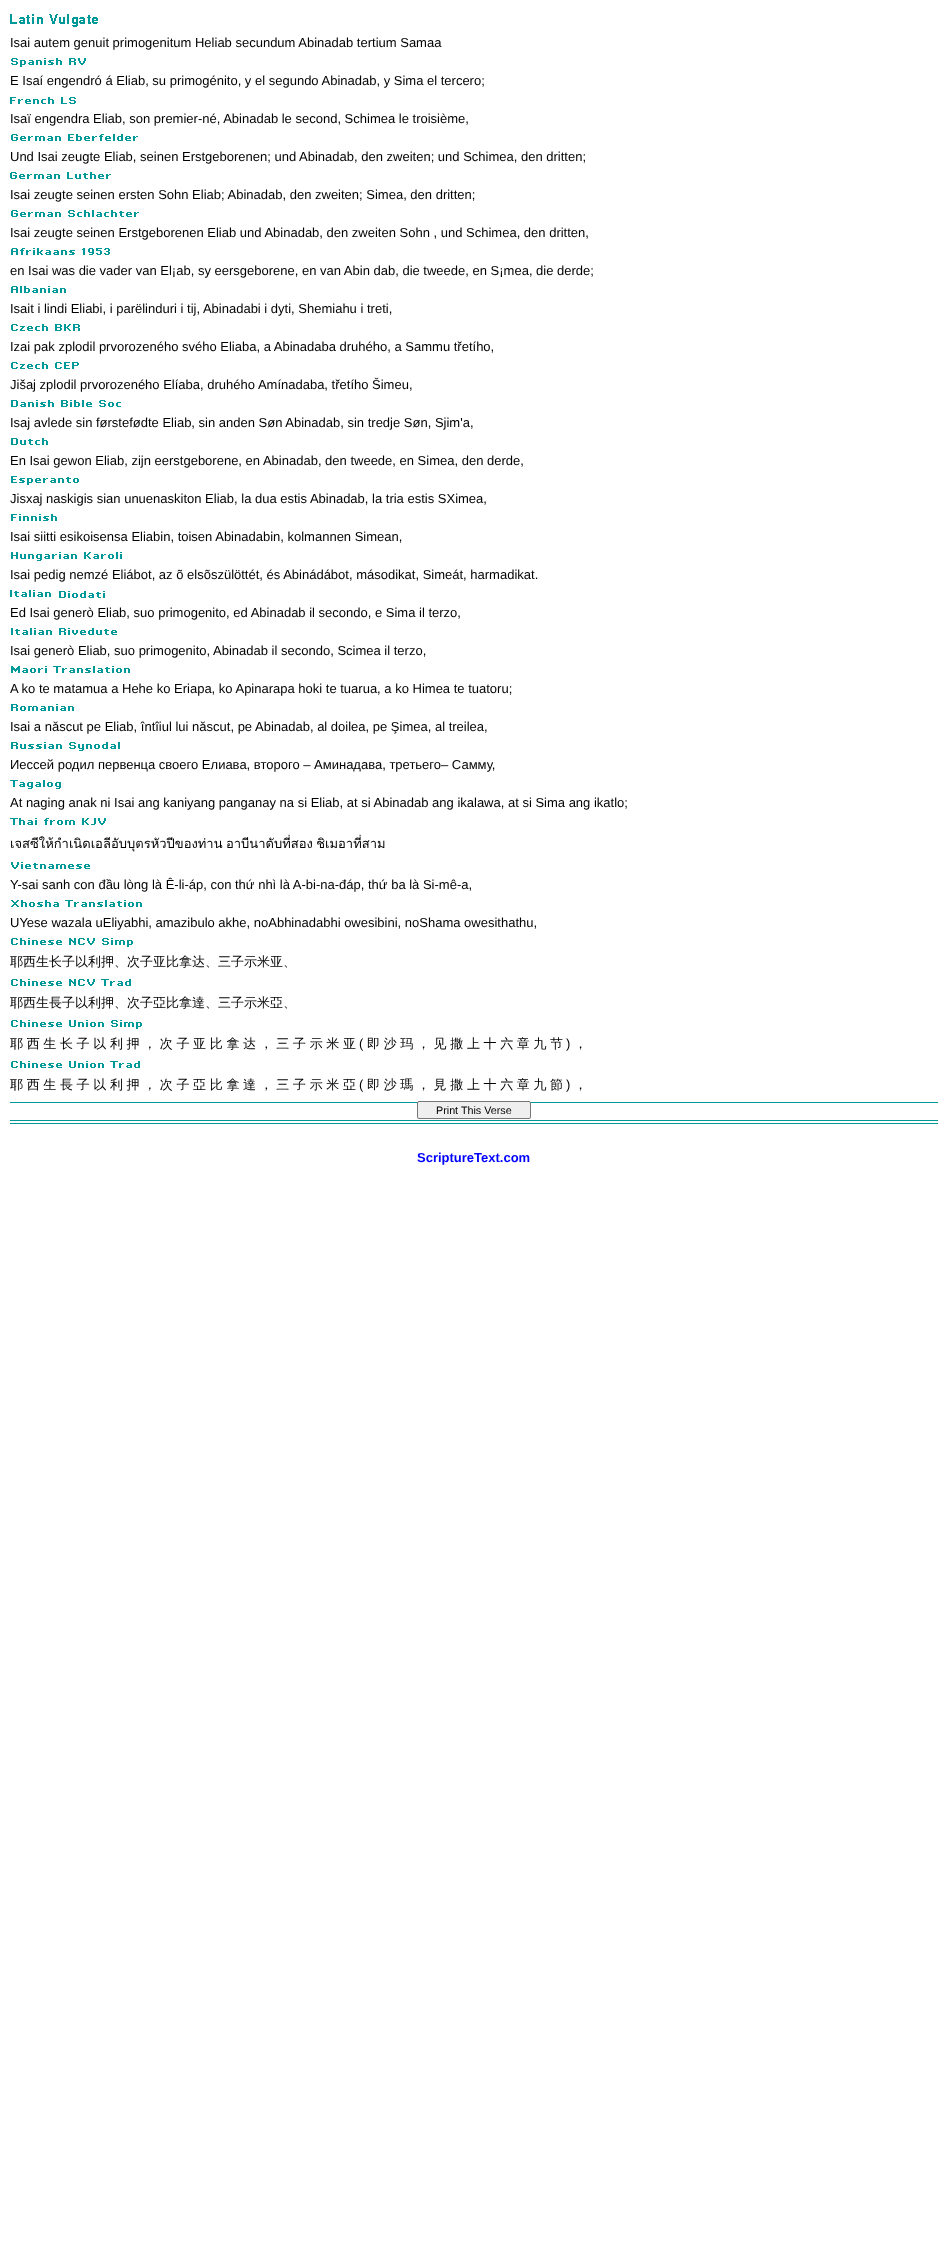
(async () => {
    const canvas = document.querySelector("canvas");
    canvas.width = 948;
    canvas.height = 2252;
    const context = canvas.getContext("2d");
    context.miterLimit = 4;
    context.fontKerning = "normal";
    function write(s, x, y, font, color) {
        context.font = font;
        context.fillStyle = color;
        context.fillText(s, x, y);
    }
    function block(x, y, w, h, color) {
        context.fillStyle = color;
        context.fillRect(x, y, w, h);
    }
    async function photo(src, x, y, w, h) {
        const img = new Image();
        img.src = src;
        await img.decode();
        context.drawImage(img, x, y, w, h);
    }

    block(0, 0, 948, 2252, "rgb(255, 255, 255)");
    await photo("media/1.png", 10, 14, 88, 13);
    write("Isai autem genuit primogenitum Heliab secundum Abinadab tertium Samaa", 10, 47, "13px Liberation Sans", "rgb(0, 0, 0)");
    await photo("media/2.png", 11, 58, 75, 9);
    write("E Isaí engendró á Eliab, su primogénito, y el segundo Abinadab, y Sima el tercero;", 10, 85, "13px Liberation Sans", "rgb(0, 0, 0)");
    await photo("media/3.png", 10, 97, 66, 7);
    write("Isaï engendra Eliab, son premier-né, Abinadab le second, Schimea le troisième,", 10, 123, "13px Liberation Sans", "rgb(0, 0, 0)");
    await photo("media/4.png", 11, 134, 127, 7);
    write("Und Isai zeugte Eliab, seinen Erstgeborenen; und Abinadab, den zweiten; und Schimea, den dritten;", 10, 161, "13px Liberation Sans", "rgb(0, 0, 0)");
    await photo("media/5.png", 10, 172, 101, 7);
    write("Isai zeugte seinen ersten Sohn Eliab; Abinadab, den zweiten; Simea, den dritten;", 10, 199, "13px Liberation Sans", "rgb(0, 0, 0)");
    await photo("media/6.png", 11, 210, 128, 7);
    write("Isai zeugte seinen Erstgeborenen Eliab und Abinadab, den zweiten Sohn , und Schimea, den dritten,", 10, 237, "13px Liberation Sans", "rgb(0, 0, 0)");
    await photo("media/7.png", 11, 248, 99, 7);
    write("en Isai was die vader van El¡ab, sy eersgeborene, en van Abin dab, die tweede, en S¡mea, die derde;", 10, 275, "13px Liberation Sans", "rgb(0, 0, 0)");
    await photo("media/8.png", 11, 286, 55, 7);
    write("Isait i lindi Eliabi, i parëlinduri i tij, Abinadabi i dyti, Shemiahu i treti,", 10, 313, "13px Liberation Sans", "rgb(0, 0, 0)");
    await photo("media/9.png", 11, 324, 69, 7);
    write("Izai pak zplodil prvorozeného svého Eliaba, a Abinadaba druhého, a Sammu třetího,", 10, 351, "13px Liberation Sans", "rgb(0, 0, 0)");
    await photo("media/10.png", 11, 362, 68, 7);
    write("Jišaj zplodil prvorozeného Elíaba, druhého Amínadaba, třetího Šimeu,", 10, 389, "13px Liberation Sans", "rgb(0, 0, 0)");
    await photo("media/11.png", 11, 400, 110, 7);
    write("Isaj avlede sin førstefødte Eliab, sin anden Søn Abinadab, sin tredje Søn, Sjim'a,", 10, 427, "13px Liberation Sans", "rgb(0, 0, 0)");
    await photo("media/12.png", 11, 438, 37, 7);
    write("En Isai gewon Eliab, zijn eerstgeborene, en Abinadab, den tweede, en Simea, den derde,", 10, 465, "13px Liberation Sans", "rgb(0, 0, 0)");
    await photo("media/13.png", 11, 476, 68, 9);
    write("Jisxaj naskigis sian unuenaskiton Eliab, la dua estis Abinadab, la tria estis SXimea,", 10, 503, "13px Liberation Sans", "rgb(0, 0, 0)");
    await photo("media/14.png", 11, 514, 46, 7);
    write("Isai siitti esikoisensa Eliabin, toisen Abinadabin, kolmannen Simean,", 10, 541, "13px Liberation Sans", "rgb(0, 0, 0)");
    await photo("media/15.png", 11, 552, 111, 9);
    write("Isai pedig nemzé Eliábot, az õ elsõszülöttét, és Abinádábot, másodikat, Simeát, harmadikat.", 10, 579, "13px Liberation Sans", "rgb(0, 0, 0)");
    await photo("media/16.png", 10, 590, 95, 8);
    write("Ed Isai generò Eliab, suo primogenito, ed Abinadab il secondo, e Sima il terzo,", 10, 617, "13px Liberation Sans", "rgb(0, 0, 0)");
    await photo("media/17.png", 11, 628, 106, 7);
    write("Isai generò Eliab, suo primogenito, Abinadab il secondo, Scimea il terzo,", 10, 655, "13px Liberation Sans", "rgb(0, 0, 0)");
    await photo("media/18.png", 11, 666, 119, 7);
    write("A ko te matamua a Hehe ko Eriapa, ko Apinarapa hoki te tuarua, a ko Himea te tuatoru;", 10, 693, "13px Liberation Sans", "rgb(0, 0, 0)");
    await photo("media/19.png", 11, 704, 63, 7);
    write("Isai a născut pe Eliab, întîiul lui născut, pe Abinadab, al doilea, pe Şimea, al treilea,", 10, 731, "13px Liberation Sans", "rgb(0, 0, 0)");
    await photo("media/20.png", 11, 742, 109, 9);
    write("Иессей родил первенца своего Елиава, второго – Аминадава, третьего– Самму,", 10, 769, "13px Liberation Sans", "rgb(0, 0, 0)");
    await photo("media/21.png", 10, 780, 51, 9);
    write("At naging anak ni Isai ang kaniyang panganay na si Eliab, at si Abinadab ang ikalawa, at si Sima ang ikatlo;", 10, 807, "13px Liberation Sans", "rgb(0, 0, 0)");
    await photo("media/22.png", 10, 818, 96, 7);
    context.wordSpacing = "-1px";
    write("เจสซีให้กำเนิดเอลีอับบุตรหัวปีของท่าน อาบีนาดับที่สอง ชิเมอาที่สาม", 10, 848, "13px Loma", "rgb(0, 0, 0)");
    await photo("media/23.png", 11, 862, 79, 7);
    context.wordSpacing = "0px";
    write("Y-sai sanh con đầu lòng là Ê-li-áp, con thứ nhì là A-bi-na-đáp, thứ ba là Si-mê-a,", 10, 889, "13px Liberation Sans", "rgb(0, 0, 0)");
    await photo("media/24.png", 11, 900, 131, 7);
    write("UYese wazala uEliyabhi, amazibulo akhe, noAbhinadabhi owesibini, noShama owesithathu,", 10, 927, "13px Liberation Sans", "rgb(0, 0, 0)");
    await photo("media/25.png", 11, 938, 122, 9);
    write("耶西生长子以利押、次子亚比拿达、三子示米亚、", 10, 966, "500 13px WenQuanYi Zen Hei", "rgb(0, 0, 0)");
    await photo("media/26.png", 11, 979, 120, 7);
    write("耶西生長子以利押、次子亞比拿達、三子示米亞、", 10, 1007, "500 13px WenQuanYi Zen Hei", "rgb(0, 0, 0)");
    await photo("media/27.png", 11, 1020, 131, 9);
    context.wordSpacing = "-0.25px";
    write("耶 西 生 长 子 以 利 押 ， 次 子 亚 比 拿 达 ， 三 子 示 米 亚", 10, 1048, "500 13px WenQuanYi Zen Hei", "rgb(0, 0, 0)");
    context.wordSpacing = "0px";
    write("(", 359, 1048, "13px Liberation Sans", "rgb(0, 0, 0)");
    context.wordSpacing = "-0.25px";
    write("即 沙 玛 ， 见 撒 上 十 六 章 九 节", 367, 1048, "500 13px WenQuanYi Zen Hei", "rgb(0, 0, 0)");
    context.wordSpacing = "0px";
    write(")", 566, 1048, "13px Liberation Sans", "rgb(0, 0, 0)");
    write("，", 574, 1048, "500 13px WenQuanYi Zen Hei", "rgb(0, 0, 0)");
    await photo("media/28.png", 11, 1061, 129, 7);
    context.wordSpacing = "-0.25px";
    write("耶 西 生 長 子 以 利 押 ， 次 子 亞 比 拿 達 ， 三 子 示 米 亞", 10, 1089, "500 13px WenQuanYi Zen Hei", "rgb(0, 0, 0)");
    context.wordSpacing = "0px";
    write("(", 359, 1089, "13px Liberation Sans", "rgb(0, 0, 0)");
    context.wordSpacing = "-0.25px";
    write("即 沙 瑪 ， 見 撒 上 十 六 章 九 節", 367, 1089, "500 13px WenQuanYi Zen Hei", "rgb(0, 0, 0)");
    context.wordSpacing = "0px";
    write(")", 566, 1089, "13px Liberation Sans", "rgb(0, 0, 0)");
    write("，", 574, 1089, "500 13px WenQuanYi Zen Hei", "rgb(0, 0, 0)");
    await photo("media/29.png", 10, 1102, 928, 22);
    context.fillStyle = "rgb(239, 239, 239)";
    context.beginPath();
    context.roundRect(417.5, 1101.5, 113, 17, 1.5);
    context.fill();
    context.strokeStyle = "rgb(118, 118, 118)";
    context.stroke();
    write("Print This Verse", 436, 1114, "10.75px Liberation Sans", "rgb(0, 0, 0)");
    write("ScriptureText.com", 417, 1162, "bold 13px Liberation Sans", "rgb(0, 0, 255)");
})();
